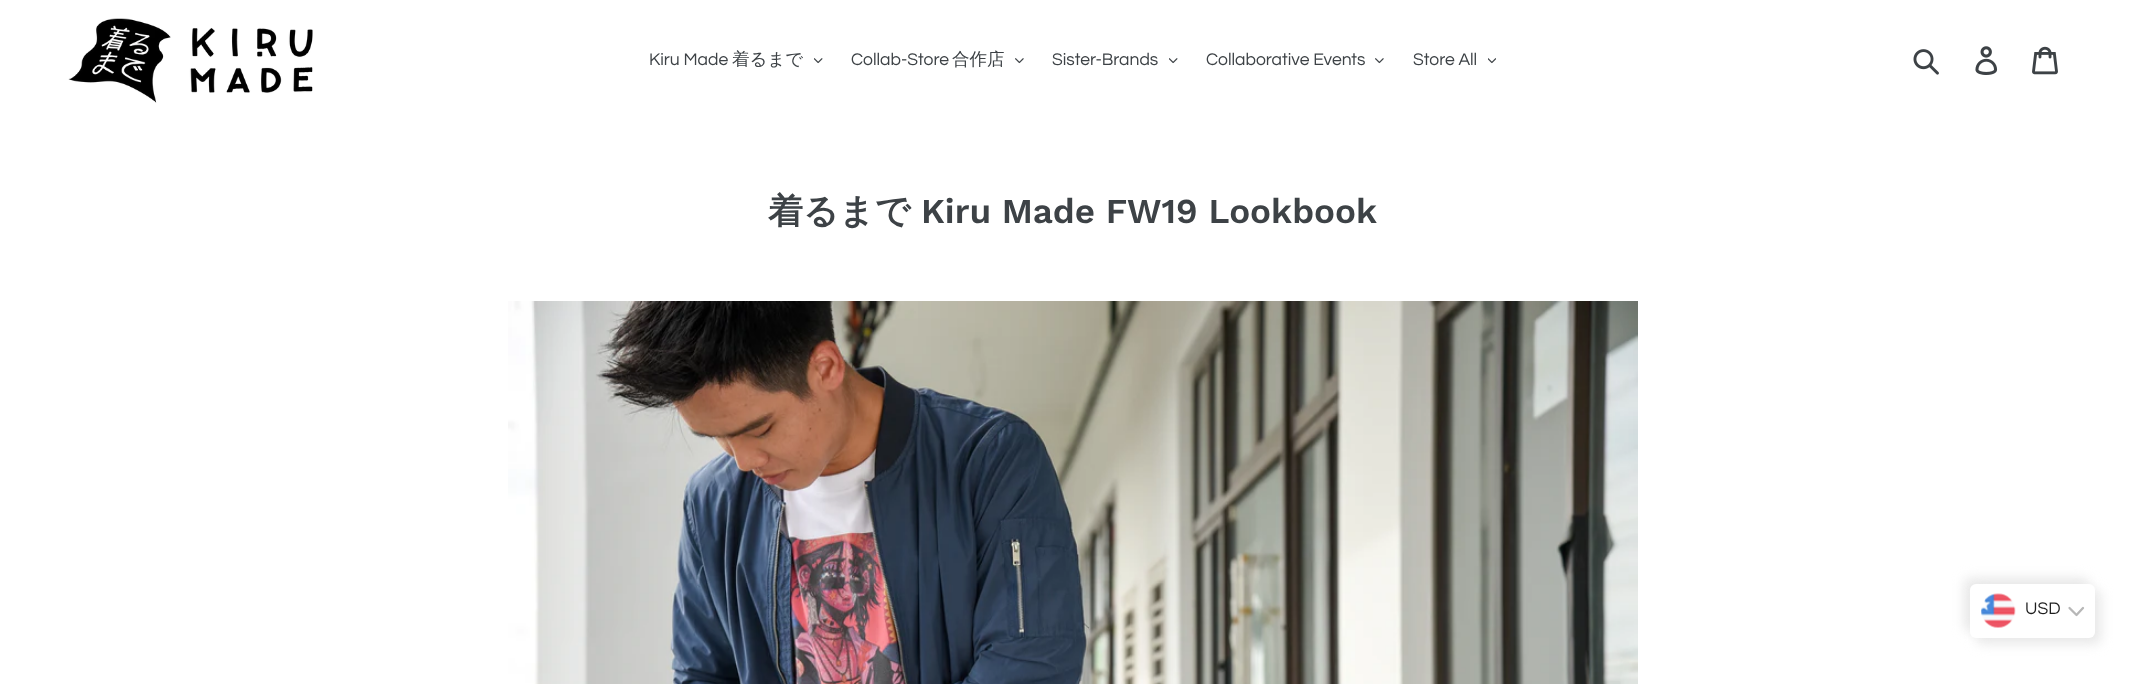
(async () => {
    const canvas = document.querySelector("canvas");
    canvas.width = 2145;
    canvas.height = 684;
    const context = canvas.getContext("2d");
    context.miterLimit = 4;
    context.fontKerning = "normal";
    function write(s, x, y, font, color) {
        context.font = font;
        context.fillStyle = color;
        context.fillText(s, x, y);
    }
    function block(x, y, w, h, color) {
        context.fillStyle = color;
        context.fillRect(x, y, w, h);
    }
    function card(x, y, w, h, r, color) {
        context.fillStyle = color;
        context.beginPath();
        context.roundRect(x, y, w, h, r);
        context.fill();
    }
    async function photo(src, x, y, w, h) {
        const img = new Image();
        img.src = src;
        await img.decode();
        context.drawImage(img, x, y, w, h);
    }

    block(0, 0, 2145, 684, "rgb(255, 255, 255)");
    await photo("media/1.png", 68, 18, 245, 85);
    write("Kiru Made", 649, 65, "17.5px Questrial", "rgb(61, 66, 70)");
    write("着るまで", 732, 65, "500 17.5px WenQuanYi Zen Hei", "rgb(61, 66, 70)");
    await photo("media/2.png", 814, 58, 9, 6);
    write("Collab-Store", 851, 65, "17.5px Questrial", "rgb(61, 66, 70)");
    write("合作店", 952, 65, "500 17.5px WenQuanYi Zen Hei", "rgb(61, 66, 70)");
    await photo("media/3.png", 1015, 58, 9, 6);
    write("Sister-Brands", 1052, 65, "17.5px Questrial", "rgb(61, 66, 70)");
    await photo("media/2.png", 1169, 58, 9, 6);
    write("Collaborative Events", 1206, 65, "17.5px Questrial", "rgb(61, 66, 70)");
    await photo("media/3.png", 1375, 58, 9, 6);
    write("Store All", 1413, 65, "17.5px Questrial", "rgb(61, 66, 70)");
    await photo("media/4.png", 1488, 58, 8, 6);
    await photo("media/5.png", 1913, 49, 26, 26);
    await photo("media/6.png", 1975, 46, 23, 29);
    await photo("media/7.png", 2032, 46, 26, 29);
    write("着るまで", 768, 223, "bold 35px WenQuanYi Zen Hei", "rgb(61, 66, 70)");
    write("Kiru Made FW19 Lookbook", 921, 223, "600 35px Work Sans", "rgb(61, 66, 70)");
    await photo("media/8.png", 508, 301, 1130, 383);
    context.fillStyle = "rgb(232, 232, 232)";
    context.filter = "blur(6px)";
    context.beginPath();
    context.roundRect(1964, 578, 125, 53, 6);
    context.fill();
    context.filter = "none";
    context.filter = "blur(6px)";
    context.beginPath();
    context.roundRect(1976, 590, 125, 54, 6);
    context.fill();
    context.filter = "none";
    card(1970, 584, 125, 54, 6, "rgb(255, 255, 255)");
    await photo("media/9.png", 1981, 593, 35, 35);
    write("USD", 2025, 614, "17.5px Questrial", "rgb(30, 30, 30)");
    context.beginPath();
    context.moveTo(2069.5, 608);
    context.lineTo(2076.5, 615);
    context.lineTo(2083, 608);
    context.strokeStyle = "rgb(183, 183, 183)";
    context.lineWidth = 2.3;
    context.lineCap = "round";
    context.lineJoin = "round";
    context.stroke();
})();
